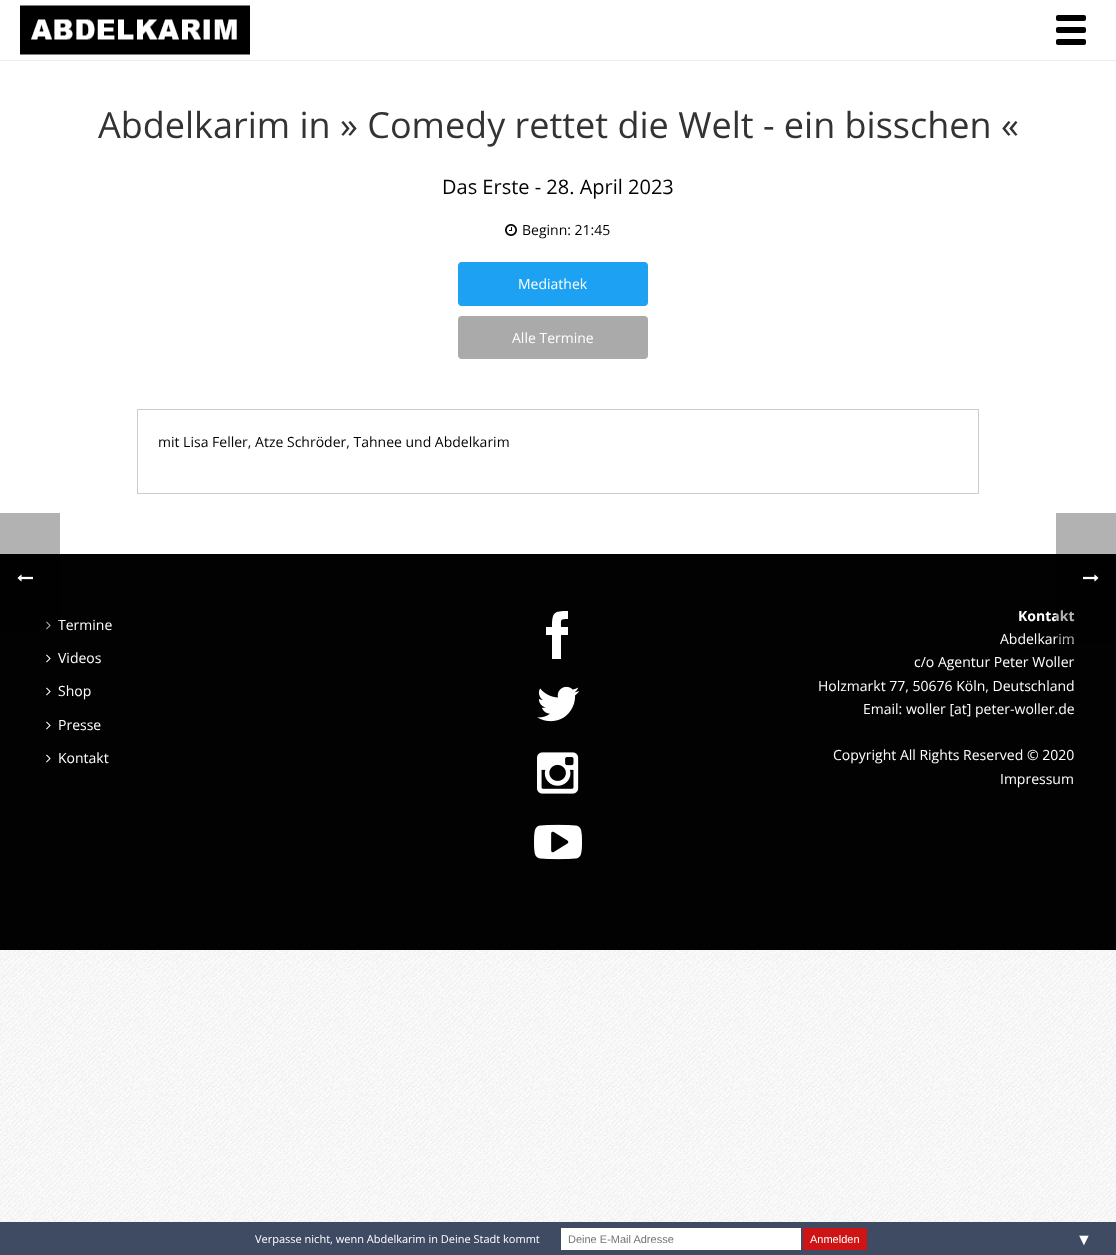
(async () => {
    const canvas = document.querySelector("canvas");
    canvas.width = 1116;
    canvas.height = 1255;
    const context = canvas.getContext("2d");
    context.miterLimit = 4;
    context.fontKerning = "normal";
    function write(s, x, y, font, color) {
        context.font = font;
        context.fillStyle = color;
        context.fillText(s, x, y);
    }
    function block(x, y, w, h, color) {
        context.fillStyle = color;
        context.fillRect(x, y, w, h);
    }
    function card(x, y, w, h, r, color) {
        context.fillStyle = color;
        context.beginPath();
        context.roundRect(x, y, w, h, r);
        context.fill();
    }
    async function photo(src, x, y, w, h) {
        const img = new Image();
        img.src = src;
        await img.decode();
        context.drawImage(img, x, y, w, h);
    }

    block(0, 0, 1116, 1255, "rgb(255, 255, 255)");
    await photo("media/1.png", 0, 950, 1116, 272);
    block(0, 60, 1116, 1, "rgb(237, 237, 237)");
    await photo("media/2.png", 20, 5, 230, 50);
    card(1056, 15, 30, 6, 2, "rgb(0, 0, 0)");
    card(1056, 27, 30, 6, 2, "rgb(0, 0, 0)");
    card(1056, 39, 30, 6, 2, "rgb(0, 0, 0)");
    write("Abdelkarim in » Comedy rettet die Welt - ein bisschen «", 98, 138, "36px Open Sans", "rgb(51, 51, 51)");
    write("Das Erste - 28. April 2023", 442, 194, "20px Open Sans", "rgb(0, 0, 0)");
    await photo("media/3.png", 505, 224, 12, 12);
    write("Beginn: 21:45", 522, 235, "14px Open Sans", "rgb(0, 0, 0)");
    card(458, 262, 190, 44, 4, "rgb(29, 161, 242)");
    write("Mediathek", 518, 289, "14px Open Sans", "rgb(255, 255, 255)");
    card(458, 316, 190, 43, 4, "rgb(170, 170, 170)");
    write("Alle Termine", 512, 343, "14px Open Sans", "rgb(255, 255, 255)");
    context.strokeStyle = "rgb(204, 204, 204)";
    context.strokeRect(137.5, 409.5, 841, 84);
    write("mit Lisa Feller, Atze Schröder, Tahnee und Abdelkarim", 158, 447, "14px Open Sans", "rgb(0, 0, 0)");
    block(0, 554, 1116, 396, "rgb(2, 2, 2)");
    await photo("media/4.png", 46, 621, 5, 9);
    write("Termine", 58, 630, "14px Open Sans", "rgb(255, 255, 255)");
    await photo("media/4.png", 46, 654, 5, 9);
    write("Videos", 58, 663, "14px Open Sans", "rgb(255, 255, 255)");
    await photo("media/4.png", 46, 687, 5, 9);
    write("Shop", 58, 696, "14px Open Sans", "rgb(255, 255, 255)");
    await photo("media/4.png", 46, 721, 5, 9);
    write("Presse", 58, 730, "14px Open Sans", "rgb(255, 255, 255)");
    await photo("media/4.png", 46, 754, 5, 9);
    write("Kontakt", 58, 763, "14px Open Sans", "rgb(255, 255, 255)");
    context.beginPath();
    context.moveTo(561, 659);
    context.lineTo(552, 659);
    context.lineTo(552, 635);
    context.lineTo(546, 635);
    context.lineTo(546, 627);
    context.lineTo(552, 627);
    context.bezierCurveTo(552, 612, 554, 611, 568, 611);
    context.lineTo(568, 619);
    context.bezierCurveTo(560, 619, 561, 619, 561, 627);
    context.lineTo(568, 627);
    context.lineTo(568, 635);
    context.lineTo(561, 635);
    context.closePath();
    context.fill();
    await photo("media/5.png", 537, 686, 43, 36);
    await photo("media/6.png", 537, 752, 42, 42);
    await photo("media/7.png", 534, 824, 48, 36);
    write("Kontakt", 1018, 621, "bold 14px Open Sans", "rgb(255, 255, 255)");
    write("Abdelkarim", 1000, 644, "14px Open Sans", "rgb(255, 255, 255)");
    write("c/o Agentur Peter Woller", 914, 667, "14px Open Sans", "rgb(255, 255, 255)");
    write("Holzmarkt 77, 50676 Köln, Deutschland", 818, 691, "14px Open Sans", "rgb(255, 255, 255)");
    write("Email: woller [at] peter-woller.de", 863, 714, "14px Open Sans", "rgb(255, 255, 255)");
    write("Copyright All Rights Reserved © 2020", 833, 760, "14px Open Sans", "rgb(255, 255, 255)");
    write("Impressum", 1000, 784, "14px Open Sans", "rgb(255, 255, 255)");
    block(0, 513, 60, 117, "rgba(0, 0, 0, 0.3)");
    await photo("media/8.png", 17, 574, 16, 8);
    block(1056, 513, 60, 130, "rgba(0, 0, 0, 0.3)");
    await photo("media/9.png", 1083, 574, 16, 8);
    block(0, 1222, 1116, 33, "rgb(63, 74, 99)");
    write("Verpasse nicht, wenn Abdelkarim in Deine Stadt kommt", 255, 1243, "11px Open Sans", "rgb(255, 255, 255)");
    block(561, 1228, 240, 22, "rgb(255, 255, 255)");
    write("Deine E-Mail Adresse", 568, 1243, "11px Liberation Sans", "rgb(117, 117, 117)");
    block(803, 1228, 64, 22, "rgb(206, 20, 20)");
    write("Anmelden", 810, 1243, "11px Liberation Sans", "rgb(255, 255, 255)");
    write("▼", 1076, 1245, "16px Liberation Serif", "rgb(255, 255, 255)");
})();
